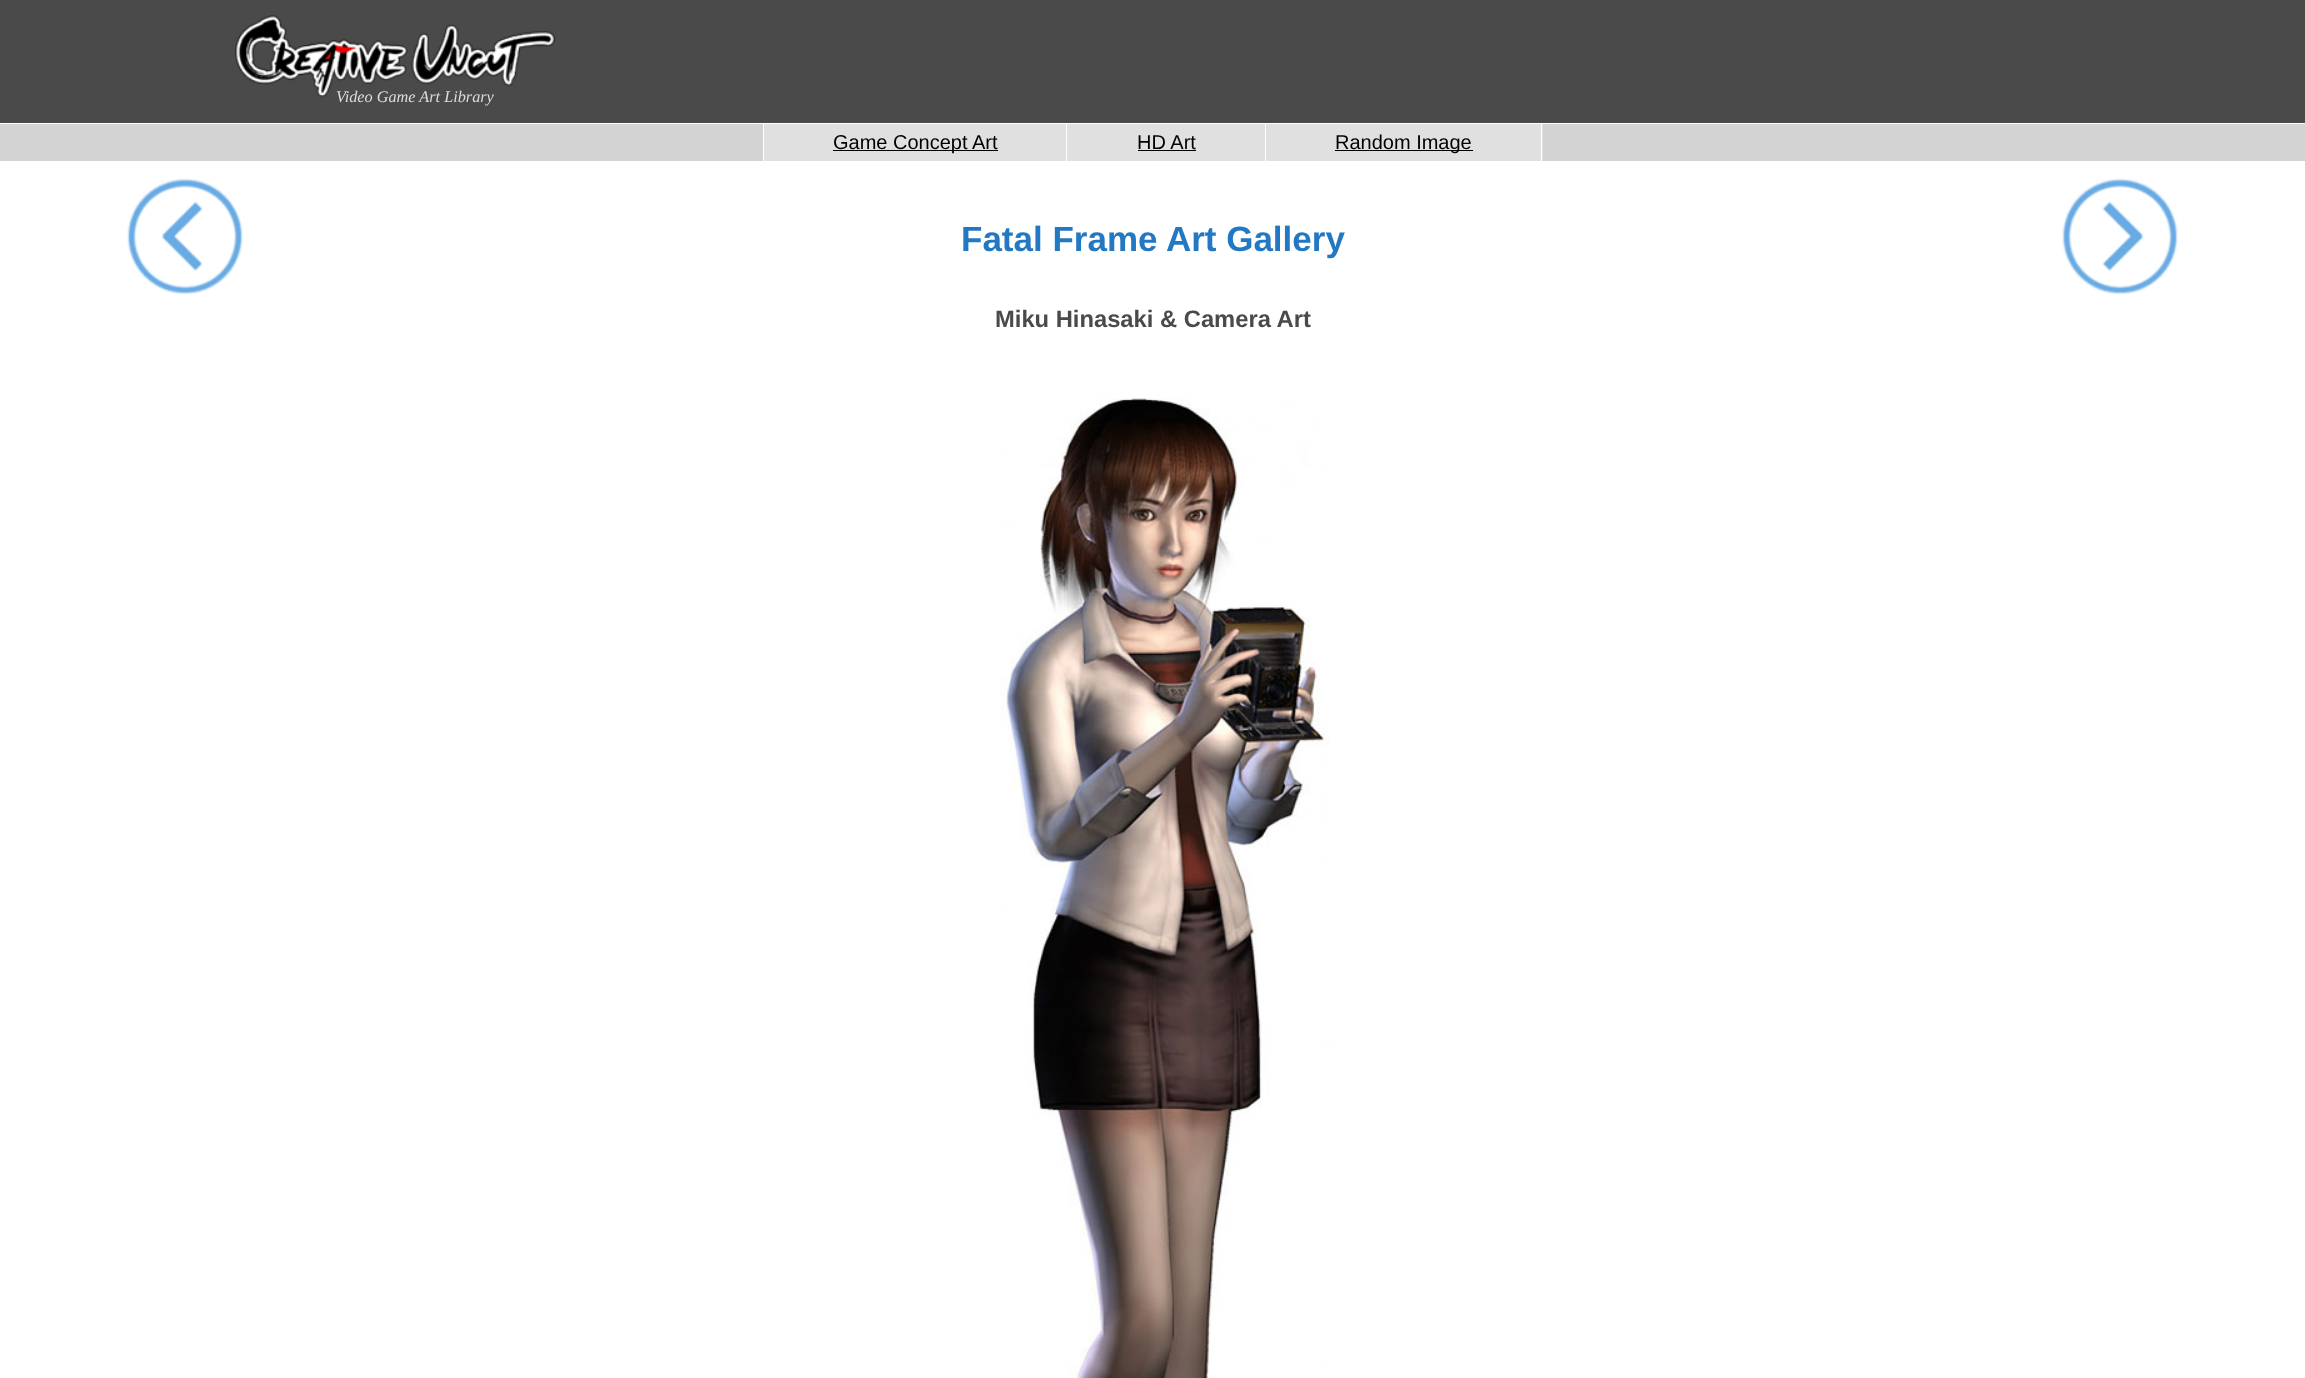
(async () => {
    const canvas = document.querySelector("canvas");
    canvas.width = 2305;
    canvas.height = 1378;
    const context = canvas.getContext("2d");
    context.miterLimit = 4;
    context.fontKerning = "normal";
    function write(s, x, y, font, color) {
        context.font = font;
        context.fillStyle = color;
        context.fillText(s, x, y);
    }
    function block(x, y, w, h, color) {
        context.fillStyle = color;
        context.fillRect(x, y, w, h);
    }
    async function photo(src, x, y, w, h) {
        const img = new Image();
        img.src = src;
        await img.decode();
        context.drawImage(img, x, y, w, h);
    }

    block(0, 0, 2305, 1378, "rgb(255, 255, 255)");
    block(0, 0, 2305, 123, "rgb(74, 74, 74)");
    await photo("media/1.png", 235, 15, 321, 83);
    write("Video Game Art Library", 336, 102, "italic 16.25px Liberation Serif", "rgb(221, 221, 221)");
    block(0, 124, 2305, 37, "rgb(211, 211, 211)");
    block(764, 124, 302, 37, "rgb(224, 224, 224)");
    block(763, 124, 1, 37, "rgb(255, 255, 255)");
    block(833, 150, 165, 1, "rgb(0, 0, 0)");
    write("Game Concept Art", 833, 149, "20px Liberation Sans", "rgb(0, 0, 0)");
    block(1067, 124, 198, 37, "rgb(224, 224, 224)");
    block(1066, 124, 1, 37, "rgb(255, 255, 255)");
    write("HD Art", 1137, 149, "20px Liberation Sans", "rgb(0, 0, 0)");
    block(1138, 150, 58, 1, "rgb(0, 0, 0)");
    block(1266, 124, 277, 37, "rgb(224, 224, 224)");
    block(1541, 124, 1, 37, "rgb(255, 255, 255)");
    block(1265, 124, 1, 37, "rgb(255, 255, 255)");
    block(1335, 150, 138, 1, "rgb(0, 0, 0)");
    write("Random Image", 1335, 149, "20px Liberation Sans", "rgb(0, 0, 0)");
    await photo("media/2.png", 127, 178, 116, 117);
    write("Fatal Frame Art Gallery", 961, 251, "bold 35px Liberation Sans", "rgb(34, 120, 195)");
    await photo("media/3.png", 2062, 178, 116, 117);
    write("Miku Hinasaki & Camera Art", 995, 327, "bold 23.75px Liberation Sans", "rgb(74, 74, 74)");
    await photo("media/4.png", 1000, 398, 330, 980);
})();
